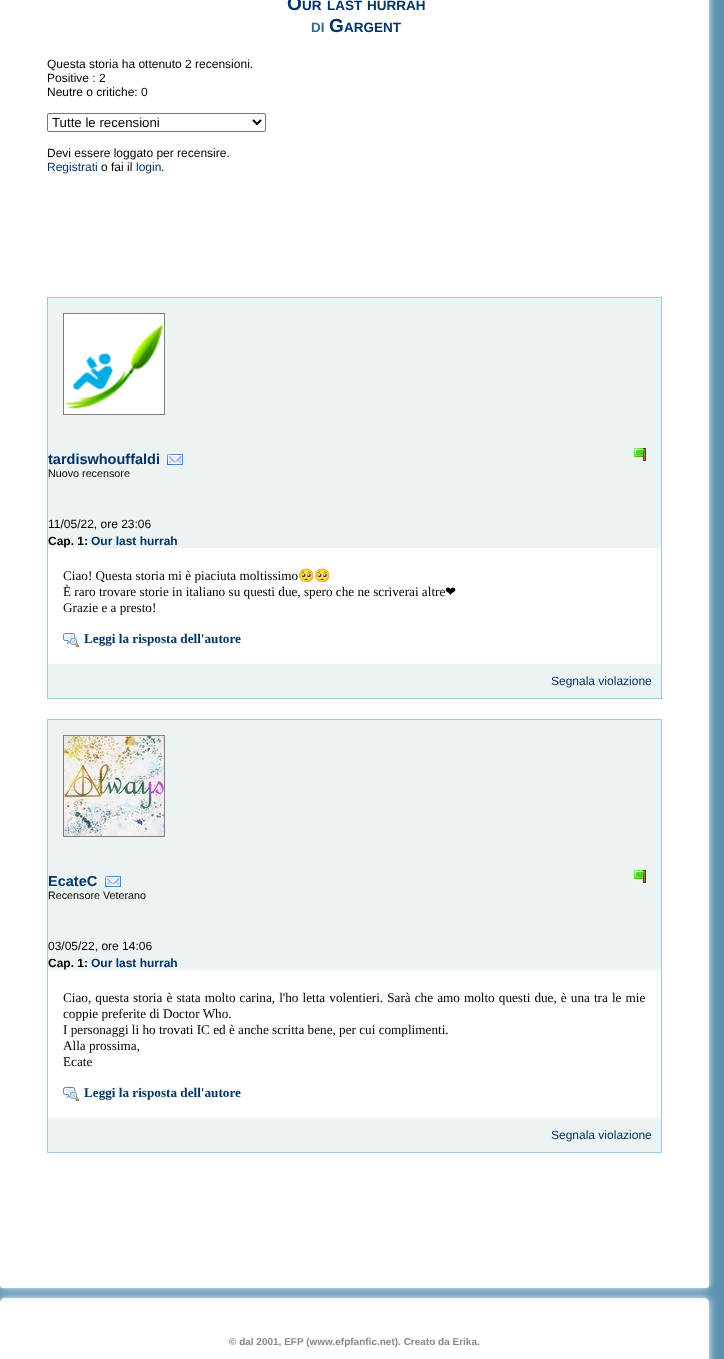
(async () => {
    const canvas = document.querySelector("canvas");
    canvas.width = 724;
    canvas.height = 1359;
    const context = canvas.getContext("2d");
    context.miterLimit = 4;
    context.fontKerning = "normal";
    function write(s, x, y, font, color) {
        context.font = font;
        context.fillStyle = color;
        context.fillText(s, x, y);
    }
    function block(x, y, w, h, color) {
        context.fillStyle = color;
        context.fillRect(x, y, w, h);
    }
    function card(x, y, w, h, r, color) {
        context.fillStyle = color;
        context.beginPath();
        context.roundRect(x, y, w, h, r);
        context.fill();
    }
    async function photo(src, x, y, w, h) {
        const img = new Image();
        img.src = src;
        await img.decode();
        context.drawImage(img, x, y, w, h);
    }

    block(0, 0, 724, 1359, "rgb(91, 146, 178)");
    context.fillStyle = "rgb(255, 255, 255)";
    context.filter = "blur(3.5px)";
    context.beginPath();
    context.roundRect(0, -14, 709, 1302, 3);
    context.fill();
    context.filter = "none";
    card(0, -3, 709, 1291, 3, "rgb(255, 255, 255)");
    write("O", 287, 10, "bold 19px Liberation Sans", "rgb(0, 51, 102)");
    write("UR", 302, 10, "bold 13.5px Liberation Sans", "rgb(0, 51, 102)");
    write("LAST", 327, 10, "bold 13.5px Liberation Sans", "rgb(0, 51, 102)");
    write("HURRAH", 367, 10, "bold 13.5px Liberation Sans", "rgb(0, 51, 102)");
    write("DI", 311, 32, "bold 13.5px Liberation Sans", "rgb(51, 102, 153)");
    write("G", 329, 32, "bold 19px Liberation Sans", "rgb(0, 51, 102)");
    write("ARGENT", 344, 32, "bold 13.5px Liberation Sans", "rgb(0, 51, 102)");
    write("Questa storia ha ottenuto 2 recensioni.", 47, 68, "12px Liberation Sans", "rgb(0, 0, 0)");
    write("Positive : 2", 47, 82, "12px Liberation Sans", "rgb(0, 0, 0)");
    write("Neutre o critiche: 0", 47, 96, "12px Liberation Sans", "rgb(0, 0, 0)");
    context.beginPath();
    context.roundRect(47.5, 113.5, 218, 18, 1.5);
    context.strokeStyle = "rgb(118, 118, 118)";
    context.stroke();
    context.beginPath();
    context.moveTo(253, 120);
    context.lineTo(257, 124);
    context.lineTo(261, 120);
    context.strokeStyle = "rgb(0, 0, 0)";
    context.lineWidth = 2;
    context.stroke();
    write("Tutte le recensioni", 52, 127, "13.25px Liberation Sans", "rgb(0, 0, 0)");
    write("Devi essere loggato per recensire.", 47, 157, "12px Liberation Sans", "rgb(0, 0, 0)");
    write("Registrati", 47, 171, "12px Liberation Sans", "rgb(0, 51, 102)");
    write("o fai il", 101, 171, "12px Liberation Sans", "rgb(0, 0, 0)");
    write("login", 136, 171, "12px Liberation Sans", "rgb(0, 51, 102)");
    write(".", 161, 171, "12px Liberation Sans", "rgb(0, 0, 0)");
    context.strokeStyle = "rgb(154, 202, 231)";
    context.lineWidth = 1;
    context.strokeRect(47.5, 297.5, 614, 401);
    block(48, 298, 613, 250, "rgb(237, 242, 242)");
    context.strokeStyle = "rgb(128, 128, 128)";
    context.strokeRect(63.5, 313.5, 101, 101);
    await photo("media/1.png", 64, 314, 100, 100);
    write("tardiswhouffaldi", 48, 464, "bold 14.5px Liberation Sans", "rgb(0, 51, 102)");
    await photo("media/2.png", 167, 454, 16, 11);
    write("Nuovo recensore", 48, 477, "10.75px Liberation Sans", "rgb(0, 0, 0)");
    write("11/05/22, ore 23:06", 48, 528, "12px Liberation Sans", "rgb(0, 0, 0)");
    write("Cap. 1:", 48, 545, "bold 12px Liberation Sans", "rgb(0, 0, 0)");
    write("Our last hurrah", 91, 545, "bold 12px Liberation Sans", "rgb(0, 51, 102)");
    await photo("media/3.png", 634, 448, 12, 13);
    write("Ciao! Questa storia mi è piaciuta moltissimo", 63, 580, "13.2px Liberation Serif", "rgb(0, 0, 0)");
    write("🥺🥺", 298, 580, "13.2px Noto Color Emoji", "rgb(0, 0, 0)");
    write("È raro trovare storie in italiano su questi due, spero che ne scriverai altre", 63, 596, "13.2px Liberation Serif", "rgb(0, 0, 0)");
    write("❤", 445, 596, "13.2px DejaVu Sans", "rgb(0, 0, 0)");
    write("Grazie e a presto!", 63, 612, "13.2px Liberation Serif", "rgb(0, 0, 0)");
    await photo("media/4.png", 63, 633, 16, 14);
    write("Leggi la risposta dell'autore", 84, 643, "bold 13.2px Liberation Serif", "rgb(0, 51, 102)");
    block(48, 664, 613, 34, "rgb(237, 242, 242)");
    write("Segnala violazione", 551, 685, "12px Liberation Sans", "rgb(0, 51, 102)");
    context.strokeStyle = "rgb(154, 202, 231)";
    context.strokeRect(47.5, 719.5, 614, 433);
    block(48, 720, 613, 250, "rgb(237, 242, 242)");
    context.strokeStyle = "rgb(128, 128, 128)";
    context.strokeRect(63.5, 735.5, 101, 101);
    await photo("media/5.png", 64, 736, 100, 100);
    write("EcateC", 48, 886, "bold 14.5px Liberation Sans", "rgb(0, 51, 102)");
    await photo("media/2.png", 105, 876, 16, 11);
    write("Recensore Veterano", 48, 899, "10.75px Liberation Sans", "rgb(0, 0, 0)");
    write("03/05/22, ore 14:06", 48, 950, "12px Liberation Sans", "rgb(0, 0, 0)");
    write("Cap. 1:", 48, 967, "bold 12px Liberation Sans", "rgb(0, 0, 0)");
    write("Our last hurrah", 91, 967, "bold 12px Liberation Sans", "rgb(0, 51, 102)");
    await photo("media/3.png", 634, 870, 12, 13);
    context.wordSpacing = "0.8px";
    write("Ciao, questa storia è stata molto carina, l'ho letta volentieri. Sarà che amo molto questi due, è una tra le mie", 63, 1002, "13.2px Liberation Serif", "rgb(0, 0, 0)");
    context.wordSpacing = "0px";
    write("coppie preferite di Doctor Who.", 63, 1018, "13.2px Liberation Serif", "rgb(0, 0, 0)");
    write("I personaggi li ho trovati IC ed è anche scritta bene, per cui complimenti.", 63, 1034, "13.2px Liberation Serif", "rgb(0, 0, 0)");
    write("Alla prossima,", 63, 1050, "13.2px Liberation Serif", "rgb(0, 0, 0)");
    write("Ecate", 63, 1066, "13.2px Liberation Serif", "rgb(0, 0, 0)");
    await photo("media/4.png", 63, 1087, 16, 14);
    write("Leggi la risposta dell'autore", 84, 1097, "bold 13.2px Liberation Serif", "rgb(0, 51, 102)");
    block(48, 1118, 613, 34, "rgb(237, 242, 242)");
    write("Segnala violazione", 551, 1139, "12px Liberation Sans", "rgb(0, 51, 102)");
    context.fillStyle = "rgb(255, 255, 255)";
    context.filter = "blur(4px)";
    context.beginPath();
    context.roundRect(0, 1298, 709, 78, 5);
    context.fill();
    context.filter = "none";
    card(0, 1298, 709, 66, 5, "rgb(255, 255, 255)");
    write("© dal 2001, EFP (www.efpfanfic.net). Creato da Erika.", 229, 1345, "bold 10px Liberation Sans", "rgb(136, 136, 136)");
})();
